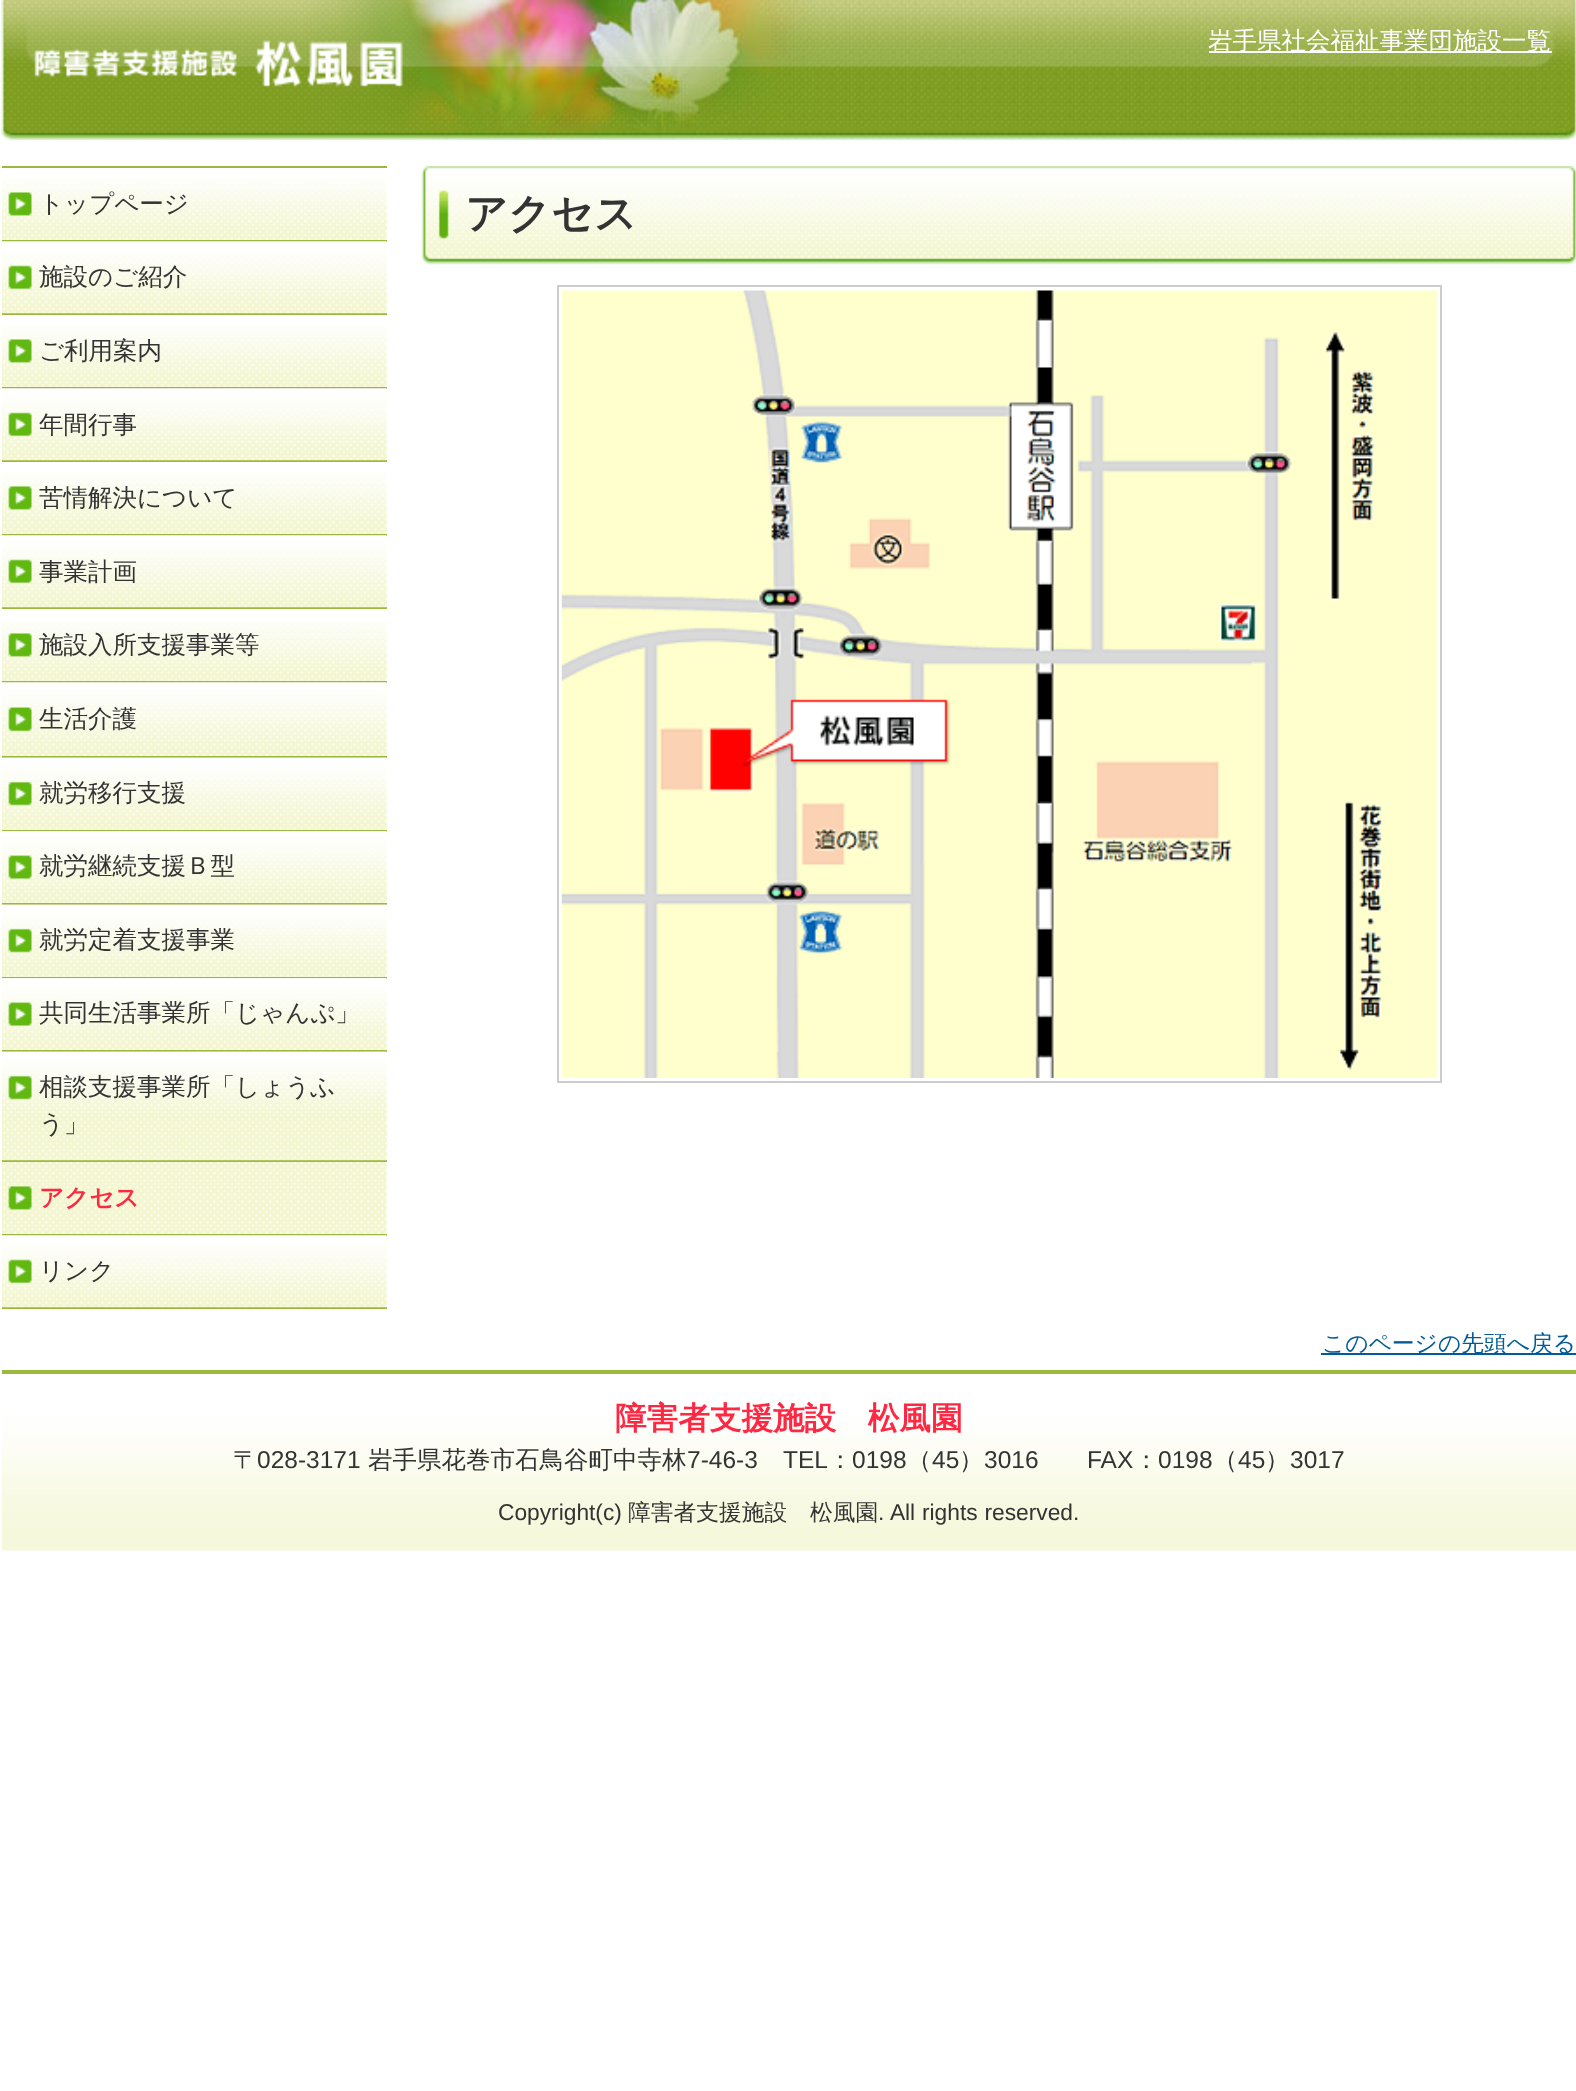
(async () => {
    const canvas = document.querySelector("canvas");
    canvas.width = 1576;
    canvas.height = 2091;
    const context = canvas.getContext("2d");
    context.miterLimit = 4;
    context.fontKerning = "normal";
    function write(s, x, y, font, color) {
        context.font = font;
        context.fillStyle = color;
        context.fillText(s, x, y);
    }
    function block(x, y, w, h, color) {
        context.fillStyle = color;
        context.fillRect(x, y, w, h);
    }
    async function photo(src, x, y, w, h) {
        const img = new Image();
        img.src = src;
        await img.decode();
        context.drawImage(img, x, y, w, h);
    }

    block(0, 0, 1576, 2091, "rgb(255, 255, 255)");
    await photo("media/1.png", 1, 0, 1575, 140);
    await photo("media/2.png", 1, 0, 421, 140);
    block(1209, 51, 343, 2, "rgb(255, 255, 255)");
    write("岩手県社会福祉事業団施設一覧", 1208, 49, "500 24.5px WenQuanYi Zen Hei", "rgb(255, 255, 255)");
    block(2, 166, 385, 2, "rgb(155, 184, 63)");
    await photo("media/3.png", 2, 178, 385, 62);
    block(2, 240, 385, 2, "rgb(155, 184, 63)");
    await photo("media/4.png", 16, 193, 371, 45);
    write("トップページ", 39, 212, "500 24.5px WenQuanYi Zen Hei", "rgb(51, 51, 51)");
    await photo("media/5.png", 2, 241, 385, 72);
    block(2, 313, 385, 2, "rgb(155, 184, 63)");
    await photo("media/6.png", 2, 241, 385, 73);
    write("施設のご紹介", 39, 285, "500 24.5px WenQuanYi Zen Hei", "rgb(51, 51, 51)");
    await photo("media/3.png", 2, 325, 385, 62);
    block(2, 387, 385, 2, "rgb(155, 184, 63)");
    await photo("media/4.png", 16, 340, 371, 45);
    write("ご利用案内", 39, 359, "500 24.5px WenQuanYi Zen Hei", "rgb(51, 51, 51)");
    await photo("media/5.png", 2, 388, 385, 72);
    block(2, 460, 385, 2, "rgb(155, 184, 63)");
    await photo("media/6.png", 2, 388, 385, 73);
    write("年間行事", 39, 433, "500 24.5px WenQuanYi Zen Hei", "rgb(51, 51, 51)");
    await photo("media/3.png", 2, 472, 385, 62);
    block(2, 534, 385, 2, "rgb(155, 184, 63)");
    await photo("media/4.png", 16, 487, 371, 45);
    write("苦情解決について", 39, 506, "500 24.5px WenQuanYi Zen Hei", "rgb(51, 51, 51)");
    await photo("media/5.png", 2, 535, 385, 72);
    block(2, 607, 385, 2, "rgb(155, 184, 63)");
    await photo("media/6.png", 2, 535, 385, 73);
    write("事業計画", 39, 580, "500 24.5px WenQuanYi Zen Hei", "rgb(51, 51, 51)");
    await photo("media/3.png", 2, 619, 385, 62);
    block(2, 681, 385, 2, "rgb(155, 184, 63)");
    await photo("media/4.png", 16, 634, 371, 45);
    write("施設入所支援事業等", 39, 653, "500 24.5px WenQuanYi Zen Hei", "rgb(51, 51, 51)");
    await photo("media/7.png", 2, 682, 385, 74);
    block(2, 756, 385, 2, "rgb(155, 184, 63)");
    await photo("media/8.png", 2, 682, 385, 72);
    write("生活介護", 39, 727, "500 24.5px WenQuanYi Zen Hei", "rgb(51, 51, 51)");
    await photo("media/9.png", 2, 757, 385, 73);
    block(2, 830, 385, 2, "rgb(155, 184, 63)");
    await photo("media/10.png", 2, 757, 385, 71);
    write("就労移行支援", 39, 801, "500 24.5px WenQuanYi Zen Hei", "rgb(51, 51, 51)");
    await photo("media/11.png", 2, 831, 385, 72);
    block(2, 903, 385, 2, "rgb(155, 184, 63)");
    await photo("media/12.png", 2, 831, 385, 70);
    write("就労継続支援Ｂ型", 39, 874, "500 24.5px WenQuanYi Zen Hei", "rgb(51, 51, 51)");
    await photo("media/9.png", 2, 904, 385, 73);
    block(2, 977, 385, 2, "rgb(155, 184, 63)");
    await photo("media/10.png", 2, 904, 385, 71);
    write("就労定着支援事業", 39, 948, "500 24.5px WenQuanYi Zen Hei", "rgb(51, 51, 51)");
    await photo("media/11.png", 2, 978, 385, 72);
    block(2, 1050, 385, 2, "rgb(155, 184, 63)");
    await photo("media/12.png", 2, 978, 385, 70);
    write("共同生活事業所「じゃんぷ」", 39, 1021, "500 24.5px WenQuanYi Zen Hei", "rgb(51, 51, 51)");
    await photo("media/13.png", 2, 1051, 385, 109);
    block(2, 1160, 385, 2, "rgb(155, 184, 63)");
    await photo("media/14.png", 2, 1051, 385, 110);
    write("相談支援事業所「しょうふ", 39, 1095, "500 24.5px WenQuanYi Zen Hei", "rgb(51, 51, 51)");
    write("う」", 39, 1132, "500 24.5px WenQuanYi Zen Hei", "rgb(51, 51, 51)");
    await photo("media/15.png", 2, 1162, 385, 72);
    block(2, 1234, 385, 2, "rgb(155, 184, 63)");
    write("アクセス", 39, 1206, "bold 24.5px WenQuanYi Zen Hei", "rgb(255, 40, 67)");
    await photo("media/5.png", 2, 1235, 385, 72);
    block(2, 1307, 385, 2, "rgb(155, 184, 63)");
    await photo("media/6.png", 2, 1235, 385, 73);
    write("リンク", 39, 1279, "500 24.5px WenQuanYi Zen Hei", "rgb(51, 51, 51)");
    await photo("media/16.png", 421, 166, 1155, 99);
    write("アクセス", 465, 228, "bold 42px WenQuanYi Zen Hei", "rgb(51, 51, 51)");
    context.strokeStyle = "rgb(204, 204, 204)";
    context.lineWidth = 2;
    context.strokeRect(558, 286, 883, 796);
    await photo("media/17.png", 561, 290, 876, 788);
    block(1321, 1353, 255, 2, "rgb(3, 91, 150)");
    write("このページの先頭へ戻る", 1322, 1351, "500 22.75px WenQuanYi Zen Hei", "rgb(3, 91, 150)");
    await photo("media/18.png", 1, 1370, 1575, 181);
    block(2, 1370, 1574, 4, "rgb(155, 184, 63)");
    write("障害者支援施設　松風園", 615, 1429, "bold 31.6px WenQuanYi Zen Hei", "rgb(255, 40, 67)");
    write("〒", 233, 1468, "500 24.5px WenQuanYi Zen Hei", "rgb(51, 51, 51)");
    write("028-3171", 257, 1468, "24.5px Liberation Sans", "rgb(51, 51, 51)");
    write("岩手県花巻市石鳥谷町中寺林", 368, 1468, "500 24.5px WenQuanYi Zen Hei", "rgb(51, 51, 51)");
    write("7-46-3", 687, 1468, "24.5px Liberation Sans", "rgb(51, 51, 51)");
    write("TEL", 783, 1468, "24.5px Liberation Sans", "rgb(51, 51, 51)");
    write("：", 828, 1468, "500 24.5px WenQuanYi Zen Hei", "rgb(51, 51, 51)");
    write("0198", 852, 1468, "24.5px Liberation Sans", "rgb(51, 51, 51)");
    write("（", 907, 1468, "500 24.5px WenQuanYi Zen Hei", "rgb(51, 51, 51)");
    write("45", 932, 1468, "24.5px Liberation Sans", "rgb(51, 51, 51)");
    write("）", 959, 1468, "500 24.5px WenQuanYi Zen Hei", "rgb(51, 51, 51)");
    write("3016", 984, 1468, "24.5px Liberation Sans", "rgb(51, 51, 51)");
    write("FAX", 1087, 1468, "24.5px Liberation Sans", "rgb(51, 51, 51)");
    write("：", 1134, 1468, "500 24.5px WenQuanYi Zen Hei", "rgb(51, 51, 51)");
    write("0198", 1158, 1468, "24.5px Liberation Sans", "rgb(51, 51, 51)");
    write("（", 1213, 1468, "500 24.5px WenQuanYi Zen Hei", "rgb(51, 51, 51)");
    write("45", 1238, 1468, "24.5px Liberation Sans", "rgb(51, 51, 51)");
    write("）", 1265, 1468, "500 24.5px WenQuanYi Zen Hei", "rgb(51, 51, 51)");
    write("3017", 1290, 1468, "24.5px Liberation Sans", "rgb(51, 51, 51)");
    write("Copyright(c)", 498, 1520, "22.75px Liberation Sans", "rgb(51, 51, 51)");
    write("障害者支援施設　松風園", 628, 1520, "500 22.75px WenQuanYi Zen Hei", "rgb(51, 51, 51)");
    context.wordSpacing = "0.5px";
    write(". All rights reserved.", 878, 1520, "22.75px Liberation Sans", "rgb(51, 51, 51)");
})();
